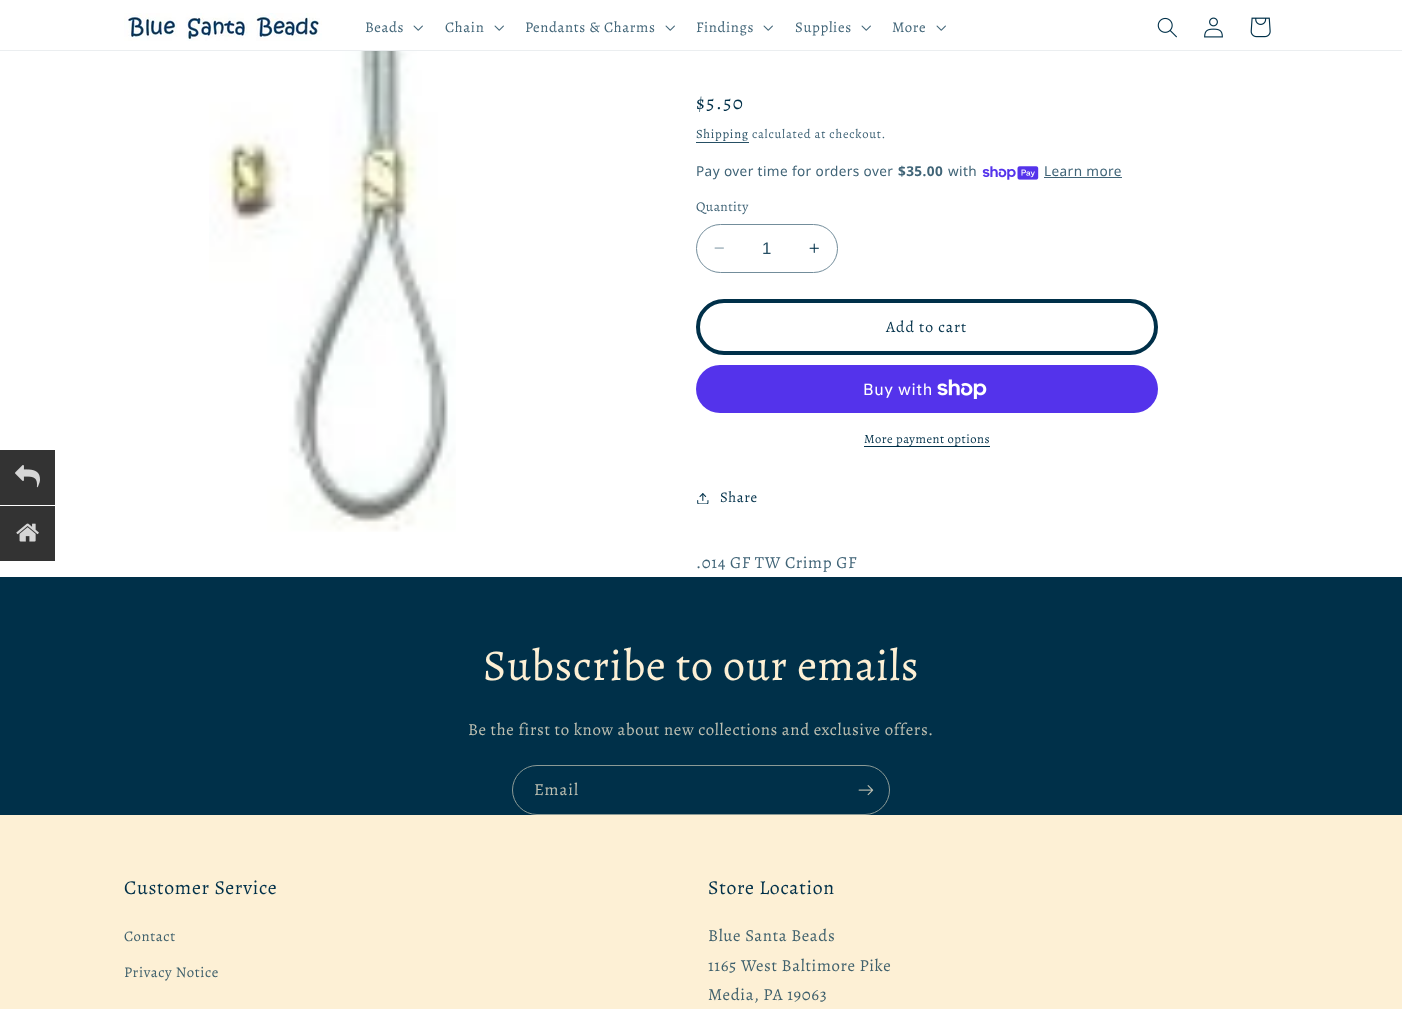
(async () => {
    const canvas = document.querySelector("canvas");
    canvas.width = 1402;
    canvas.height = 1009;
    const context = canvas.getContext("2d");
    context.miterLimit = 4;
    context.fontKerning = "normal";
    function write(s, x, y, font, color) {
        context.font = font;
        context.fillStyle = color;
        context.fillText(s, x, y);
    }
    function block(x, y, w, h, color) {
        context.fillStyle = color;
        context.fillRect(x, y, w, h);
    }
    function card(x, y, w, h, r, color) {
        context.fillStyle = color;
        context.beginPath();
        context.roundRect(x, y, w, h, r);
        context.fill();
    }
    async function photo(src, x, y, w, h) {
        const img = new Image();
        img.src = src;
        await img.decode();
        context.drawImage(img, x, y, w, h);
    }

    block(0, 0, 1402, 1009, "rgb(255, 255, 255)");
    block(0, 50, 1402, 1, "rgb(235, 238, 240)");
    await photo("media/1.png", 124, 13, 198, 28);
    context.letterSpacing = "0.63px";
    write("Beads", 365, 32, "14.75px Alegreya", "rgb(64, 100, 119)");
    await photo("media/2.png", 413, 25, 10, 6);
    write("Chain", 445, 32, "14.75px Alegreya", "rgb(64, 100, 119)");
    await photo("media/2.png", 494, 25, 10, 6);
    write("Pendants & Charms", 525, 32, "14.75px Alegreya", "rgb(64, 100, 119)");
    await photo("media/2.png", 665, 25, 10, 6);
    write("Findings", 696, 32, "14.75px Alegreya", "rgb(64, 100, 119)");
    await photo("media/2.png", 763, 25, 10, 6);
    write("Supplies", 795, 32, "14.75px Alegreya", "rgb(64, 100, 119)");
    await photo("media/2.png", 861, 25, 10, 6);
    write("More", 892, 32, "14.75px Alegreya", "rgb(64, 100, 119)");
    await photo("media/2.png", 936, 25, 10, 6);
    await photo("media/3.png", 1157, 17, 20, 21);
    await photo("media/4.png", 1204, 17, 19, 21);
    await photo("media/5.png", 1250, 17, 21, 21);
    block(0, 450, 55, 55, "rgb(51, 51, 51)");
    await photo("media/6.png", 15, 465, 25, 23);
    block(0, 506, 55, 55, "rgb(51, 51, 51)");
    await photo("media/7.png", 16, 523, 23, 19);
    await photo("media/8.png", 209, 51, 247, 481);
    context.letterSpacing = "1.5px";
    write("$5.50", 696, 109, "19px Alegreya", "rgb(0, 48, 73)");
    context.letterSpacing = "0.75px";
    write("Shipping", 696, 138, "12.6px Alegreya", "rgb(38, 79, 100)");
    block(696, 142, 53, 1, "rgb(38, 79, 100)");
    write("calculated at checkout.", 752, 138, "12.6px Alegreya", "rgb(64, 100, 119)");
    context.letterSpacing = "0.4px";
    write("Pay over time for orders over", 696, 176, "13.6px Noto Sans", "rgb(64, 100, 119)");
    write("$35.00", 898, 176, "bold 13.6px Noto Sans", "rgb(64, 100, 119)");
    write("with", 948, 176, "13.6px Noto Sans", "rgb(64, 100, 119)");
    await photo("media/9.png", 982, 166, 57, 14);
    write("Learn more", 1044, 176, "13.6px Noto Sans", "rgb(64, 100, 119)");
    block(1044, 177, 78, 1, "rgb(64, 100, 119)");
    write("Quantity", 696, 211, "13.6px Alegreya", "rgb(64, 100, 119)");
    await photo("media/10.png", 714, 247, 10, 2);
    await photo("media/11.png", 809, 243, 10, 10);
    context.beginPath();
    context.roundRect(696.5, 224.5, 141, 48, 24);
    context.strokeStyle = "rgb(115, 141, 155)";
    context.stroke();
    context.letterSpacing = "0px";
    write("1", 762, 254, "16.8px Liberation Sans", "rgb(38, 79, 100)");
    context.beginPath();
    context.roundRect(698, 301, 458, 52, 26);
    context.strokeStyle = "rgb(0, 48, 73)";
    context.lineWidth = 4;
    context.stroke();
    context.letterSpacing = "1px";
    write("Add to cart", 886, 332, "15.75px Alegreya", "rgb(0, 48, 73)");
    card(696, 365, 462, 48, 24, "rgb(84, 51, 235)");
    context.letterSpacing = "0.63px";
    write("Buy with", 863, 395, "16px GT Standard", "rgb(255, 255, 255)");
    await photo("media/12.png", 937, 379, 50, 20);
    context.letterSpacing = "0.5px";
    write("More payment options", 864, 443, "12.6px Alegreya", "rgb(0, 48, 73)");
    block(864, 446, 126, 1, "rgb(0, 48, 73)");
    await photo("media/13.png", 697, 493, 12, 11);
    context.letterSpacing = "0.63px";
    write("Share", 720, 502, "14.75px Alegreya", "rgb(0, 48, 73)");
    write(".014 GF TW Crimp GF", 696, 568, "16.8px Alegreya", "rgb(64, 100, 119)");
    block(0, 577, 1402, 238, "rgb(0, 48, 73)");
    context.letterSpacing = "0.7px";
    write("Subscribe to our emails", 483, 680, "44px Alegreya", "rgb(253, 240, 213)");
    context.letterSpacing = "0.63px";
    write("Be the first to know about new collections and exclusive offers.", 468, 735, "16.8px Alegreya", "rgb(190, 192, 178)");
    context.beginPath();
    context.roundRect(512.5, 765.5, 377, 49, 24.5);
    context.strokeStyle = "rgb(139, 154, 150)";
    context.lineWidth = 1;
    context.stroke();
    context.letterSpacing = "1px";
    write("Email", 534, 795, "16.8px Alegreya", "rgb(190, 192, 178)");
    await photo("media/14.png", 858, 785, 16, 11);
    block(0, 815, 1402, 194, "rgb(253, 240, 213)");
    context.letterSpacing = "0.7px";
    write("Customer Service", 124, 894, "19.75px Alegreya", "rgb(0, 48, 73)");
    context.letterSpacing = "0.63px";
    write("Contact", 124, 941, "14.75px Alegreya", "rgb(63, 96, 108)");
    write("Privacy Notice", 124, 977, "14.75px Alegreya", "rgb(63, 96, 108)");
    context.letterSpacing = "0.7px";
    write("Store Location", 708, 894, "19.75px Alegreya", "rgb(0, 48, 73)");
    context.letterSpacing = "0.63px";
    write("Blue Santa Beads", 708, 941, "16.8px Alegreya", "rgb(63, 96, 108)");
    write("1165 West Baltimore Pike", 708, 971, "16.8px Alegreya", "rgb(63, 96, 108)");
    write("Media, PA 19063", 708, 1000, "16.8px Alegreya", "rgb(63, 96, 108)");
})();
